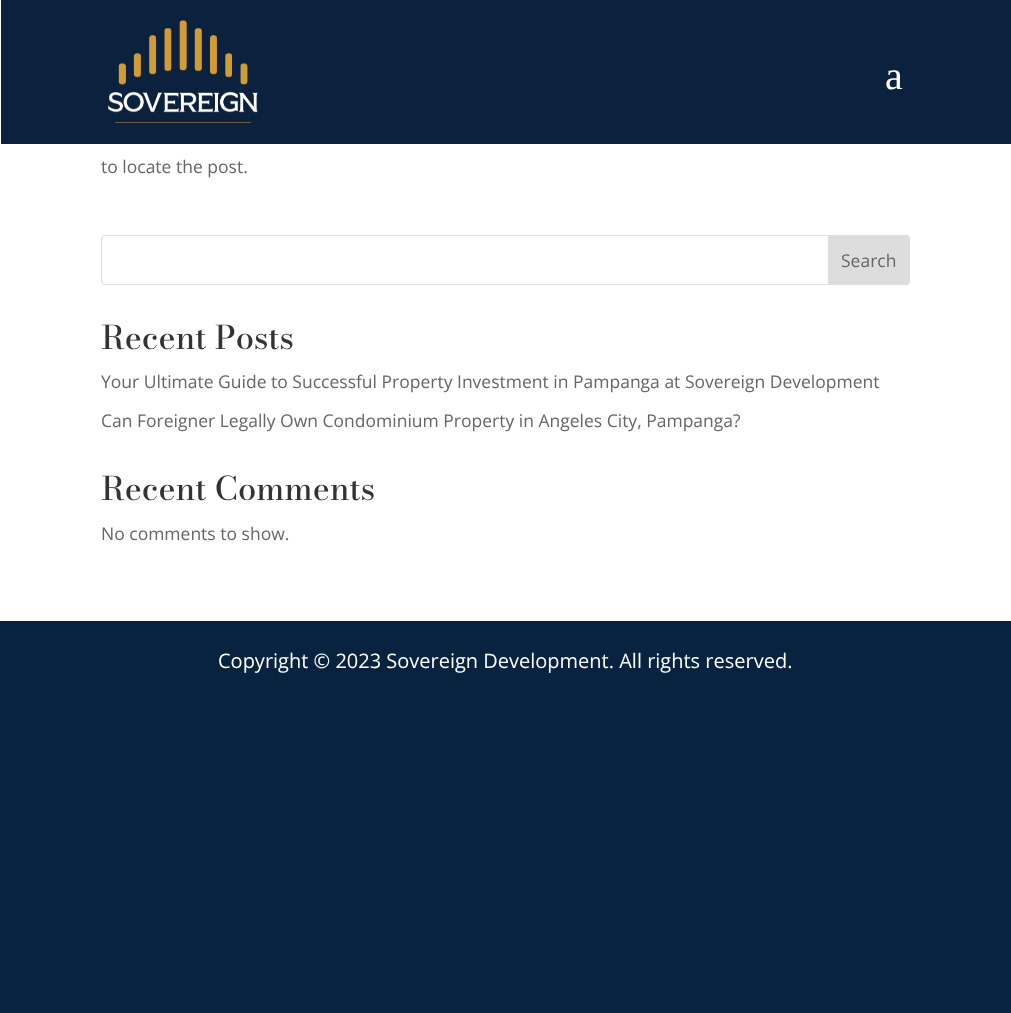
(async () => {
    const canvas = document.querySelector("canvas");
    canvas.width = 1011;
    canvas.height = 1013;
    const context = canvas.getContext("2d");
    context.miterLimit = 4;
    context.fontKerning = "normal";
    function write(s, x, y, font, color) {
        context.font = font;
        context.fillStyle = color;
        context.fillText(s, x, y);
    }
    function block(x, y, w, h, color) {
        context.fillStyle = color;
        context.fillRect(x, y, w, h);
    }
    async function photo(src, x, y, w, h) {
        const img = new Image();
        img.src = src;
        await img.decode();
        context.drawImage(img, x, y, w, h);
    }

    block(0, 0, 1011, 1013, "rgb(8, 35, 63)");
    block(0, 0, 1011, 621, "rgb(255, 255, 255)");
    block(1, 0, 1010, 144, "rgb(12, 33, 61)");
    await photo("media/1.png", 108, 20, 150, 103);
    write("a", 885, 89, "40px Liberation Serif", "rgb(255, 255, 255)");
    write("to locate the post.", 101, 173, "17.5px Open Sans", "rgb(102, 102, 102)");
    context.beginPath();
    context.roundRect(101.5, 235.5, 808, 49, 3.5);
    context.strokeStyle = "rgb(221, 221, 221)";
    context.stroke();
    context.fillStyle = "rgb(221, 221, 221)";
    context.beginPath();
    context.roundRect(828.5, 235.5, 81, 49, [0, 3.5, 3.5, 0]);
    context.fill();
    context.stroke();
    write("Search", 841, 267, "17.5px Open Sans", "rgb(102, 102, 102)");
    write("Recent Posts", 101, 349, "500 32.5px Bodoni Moda", "rgb(51, 51, 51)");
    write("Your Ultimate Guide to Successful Property Investment in Pampanga at Sovereign Development", 101, 388, "17.5px Open Sans", "rgb(102, 102, 102)");
    write("Can Foreigner Legally Own Condominium Property in Angeles City, Pampanga?", 101, 427, "17.5px Open Sans", "rgb(102, 102, 102)");
    write("Recent Comments", 101, 500, "500 32.5px Bodoni Moda", "rgb(51, 51, 51)");
    write("No comments to show.", 101, 540, "17.5px Open Sans", "rgb(102, 102, 102)");
    write("Copyright © 2023 Sovereign Development. All rights reserved.", 218, 668, "20px Open Sans", "rgb(255, 255, 255)");
})();
